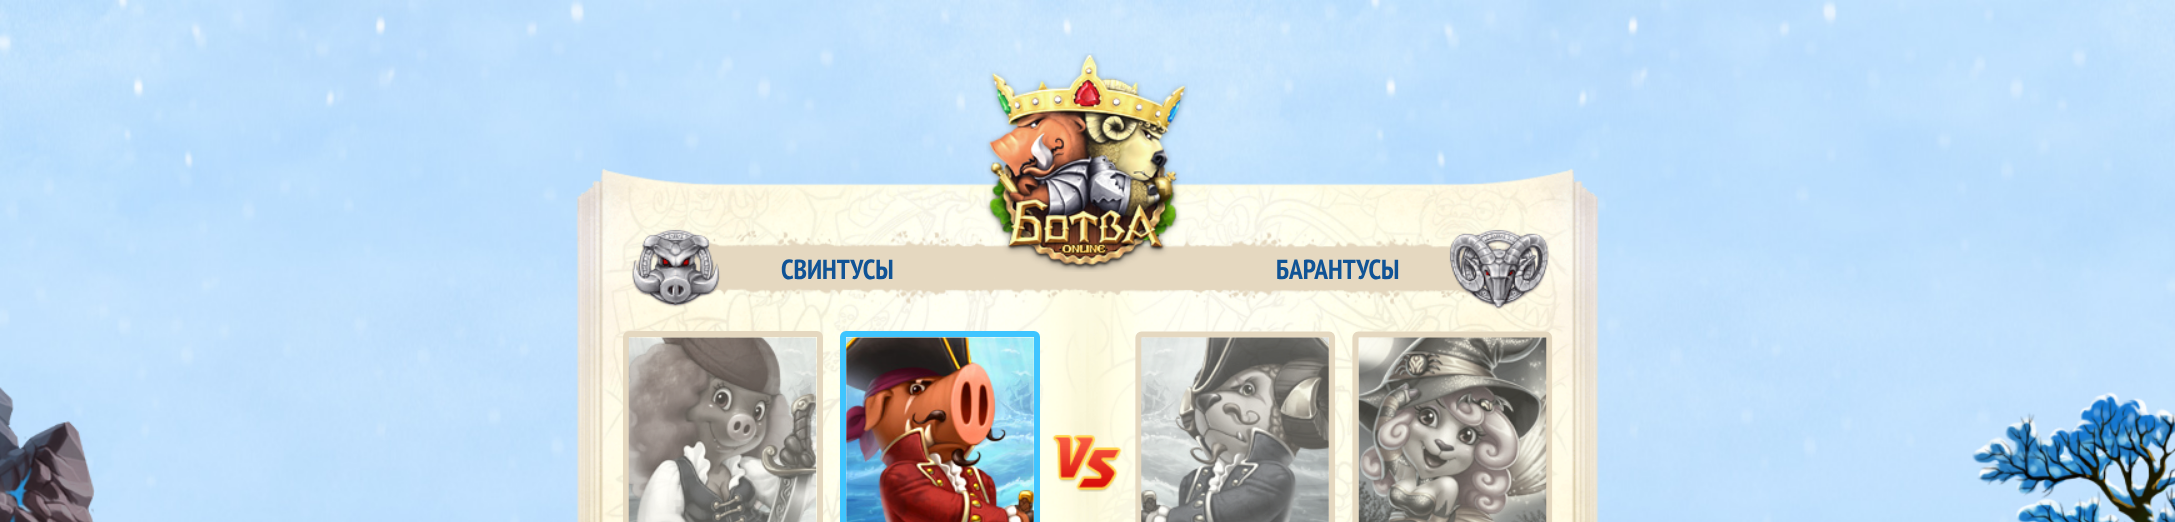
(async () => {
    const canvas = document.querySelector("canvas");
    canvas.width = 2175;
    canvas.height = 522;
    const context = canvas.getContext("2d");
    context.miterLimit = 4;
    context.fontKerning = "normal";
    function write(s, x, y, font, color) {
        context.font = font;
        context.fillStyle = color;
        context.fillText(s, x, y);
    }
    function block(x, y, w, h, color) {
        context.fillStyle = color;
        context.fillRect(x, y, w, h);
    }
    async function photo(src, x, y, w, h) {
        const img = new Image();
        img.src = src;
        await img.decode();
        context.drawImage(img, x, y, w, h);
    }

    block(0, 0, 2175, 522, "rgb(255, 255, 255)");
    await photo("media/1.png", 0, 0, 2175, 522);
    await photo("media/2.png", 0, 387, 95, 135);
    await photo("media/3.png", 1972, 392, 203, 130);
    await photo("media/4.png", 576, 168, 1023, 354);
    write("СВИНТУСЫ", 781, 279, "bold 27.5px PT Sans Narrow", "rgb(16, 83, 149)");
    context.beginPath();
    context.roundRect(626, 334, 194, 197, 3);
    context.strokeStyle = "rgb(229, 216, 192)";
    context.lineWidth = 6;
    context.stroke();
    await photo("media/5.png", 628, 337, 189, 185);
    context.beginPath();
    context.roundRect(843, 334, 194, 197, 3);
    context.strokeStyle = "rgb(63, 197, 255)";
    context.stroke();
    await photo("media/6.png", 846, 337, 188, 185);
    await photo("media/7.png", 986, 53, 202, 219);
    write("БАРАНТУСЫ", 1276, 279, "bold 27.5px PT Sans Narrow", "rgb(16, 83, 149)");
    context.beginPath();
    context.moveTo(1329, 334.5);
    context.lineTo(1141.5, 334.5);
    context.bezierCurveTo(1140, 334.5, 1138.5, 336, 1138.5, 337.5);
    context.lineTo(1138.5, 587.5);
    context.bezierCurveTo(1138.5, 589, 1140, 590.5, 1141.5, 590.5);
    context.lineTo(1329, 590.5);
    context.bezierCurveTo(1331, 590.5, 1332, 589, 1332, 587.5);
    context.lineTo(1332, 337.5);
    context.bezierCurveTo(1332, 336, 1331, 334.5, 1329, 334.5);
    context.closePath();
    context.strokeStyle = "rgb(229, 216, 192)";
    context.lineWidth = 6.2;
    context.stroke();
    await photo("media/8.png", 1141, 337, 188, 185);
    context.beginPath();
    context.moveTo(1546, 334.5);
    context.lineTo(1358.5, 334.5);
    context.bezierCurveTo(1356.5, 334.5, 1355.5, 336, 1355.5, 337.5);
    context.lineTo(1355.5, 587.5);
    context.bezierCurveTo(1355.5, 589, 1356.5, 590.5, 1358.5, 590.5);
    context.lineTo(1546, 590.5);
    context.bezierCurveTo(1547.5, 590.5, 1549, 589, 1549, 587.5);
    context.lineTo(1549, 337.5);
    context.bezierCurveTo(1549, 336, 1547.5, 334.5, 1546, 334.5);
    context.closePath();
    context.stroke();
    await photo("media/9.png", 1358, 337, 189, 185);
    await photo("media/10.png", 1052, 434, 70, 58);
})();
